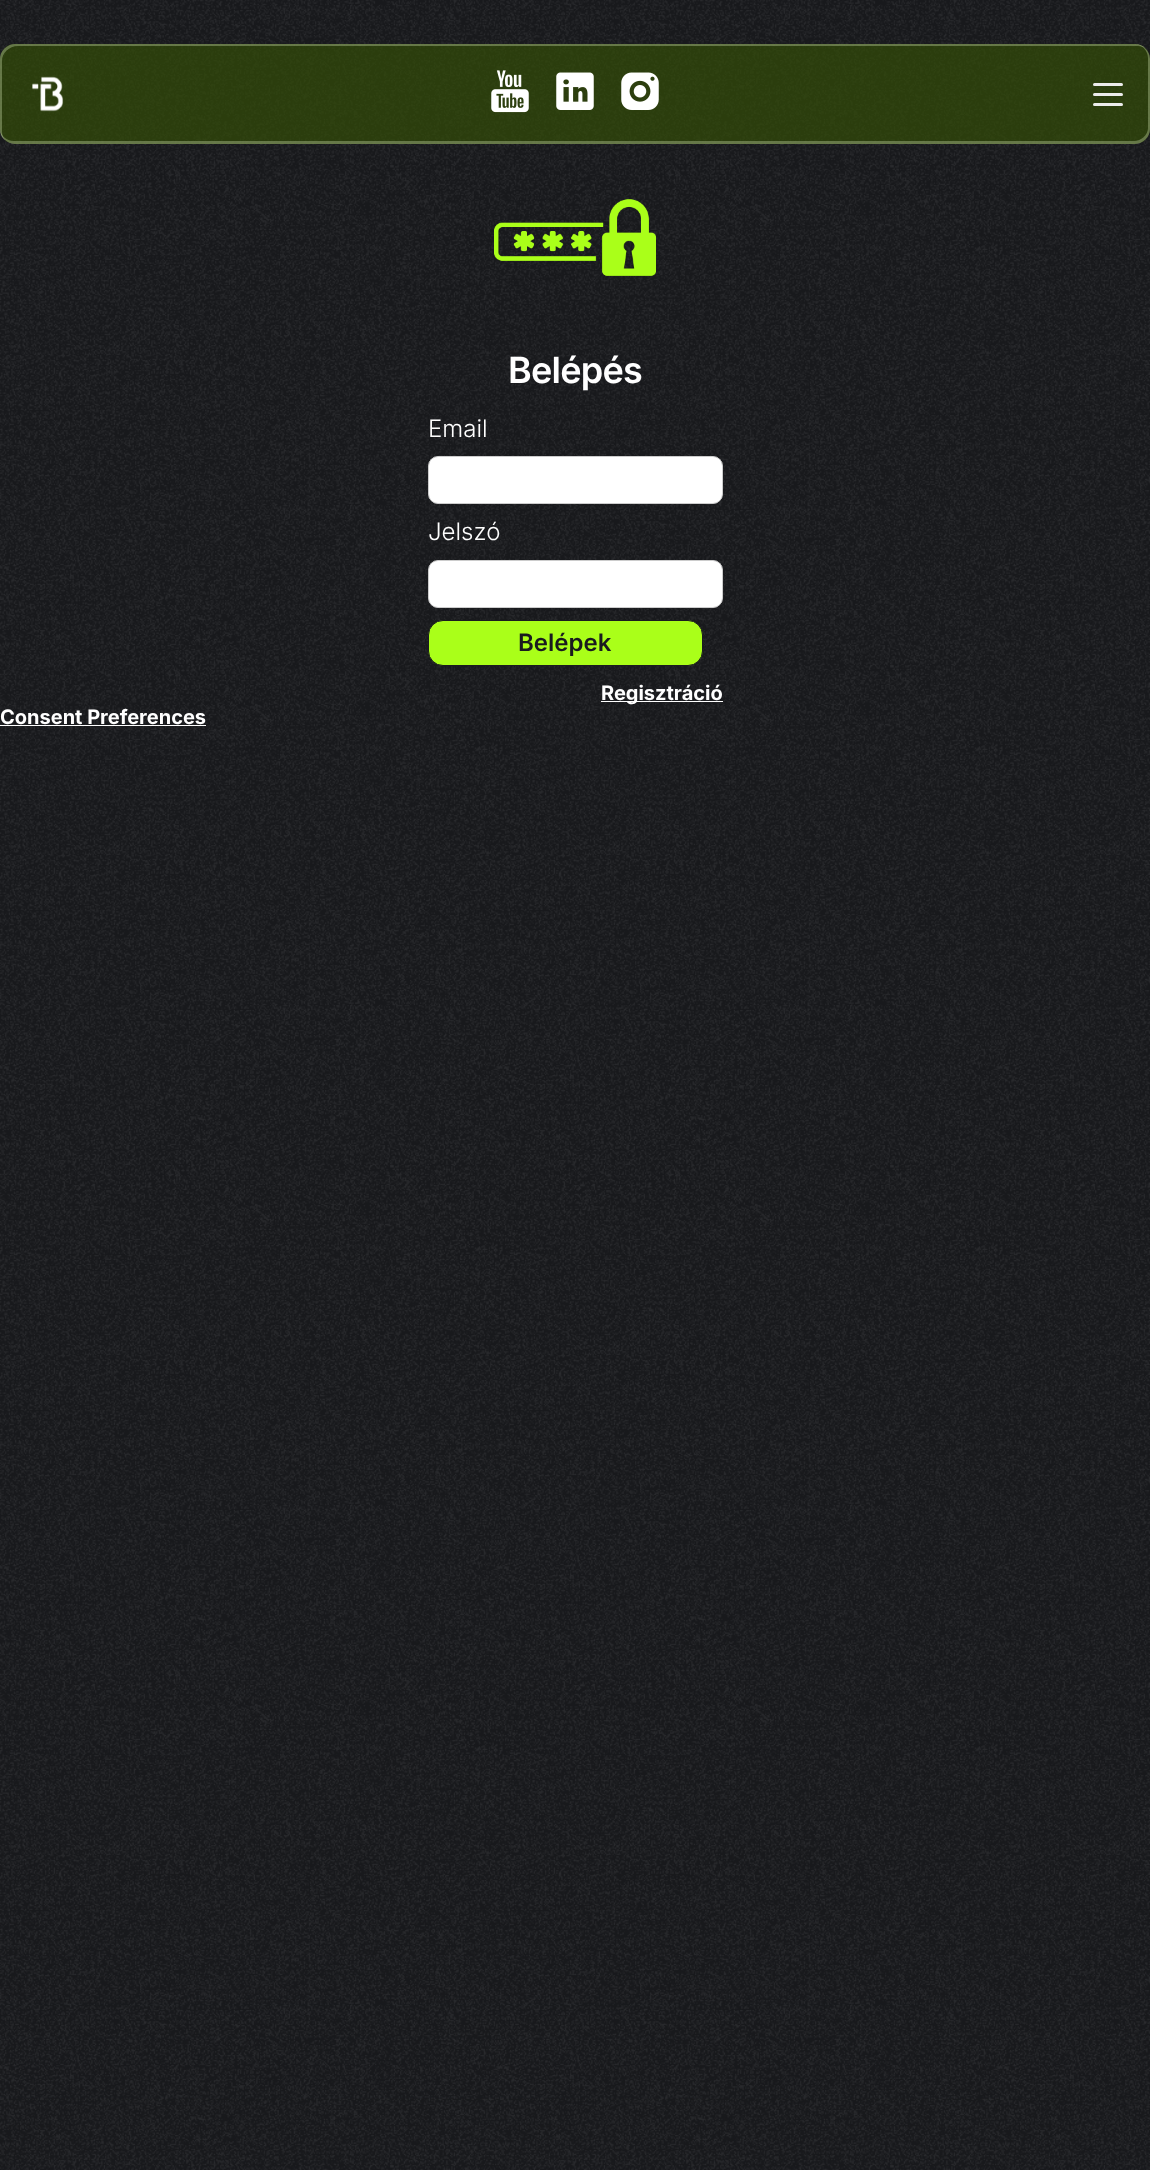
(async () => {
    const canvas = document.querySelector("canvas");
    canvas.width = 1150;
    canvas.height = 2170;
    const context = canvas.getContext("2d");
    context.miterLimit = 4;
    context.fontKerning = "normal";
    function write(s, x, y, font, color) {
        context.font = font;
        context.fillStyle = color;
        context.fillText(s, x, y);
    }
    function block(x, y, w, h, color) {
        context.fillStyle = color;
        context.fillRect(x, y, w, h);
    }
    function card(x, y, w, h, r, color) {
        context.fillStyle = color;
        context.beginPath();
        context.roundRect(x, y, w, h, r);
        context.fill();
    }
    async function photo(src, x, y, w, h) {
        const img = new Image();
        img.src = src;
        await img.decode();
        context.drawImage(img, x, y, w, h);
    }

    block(0, 0, 1150, 2170, "rgb(26, 27, 31)");
    await photo("media/1.png", 0, 0, 1150, 2170);
    card(0, 44, 1150, 100, 15, "rgba(0, 0, 0, 0.6)");
    context.fillStyle = "rgba(255, 255, 255, 0.3)";
    context.beginPath();
    context.moveTo(18, 46);
    context.lineTo(1138, 46);
    context.bezierCurveTo(1141, 46, 1143, 47, 1146, 48);
    context.bezierCurveTo(1143, 46, 1139, 44, 1135, 44);
    context.lineTo(15, 44);
    context.bezierCurveTo(7, 44, 0, 51, 0, 59);
    context.lineTo(0, 129);
    context.bezierCurveTo(0, 134, 2, 138, 5, 140);
    context.bezierCurveTo(3, 138, 2, 135, 2, 131);
    context.lineTo(2, 61);
    context.bezierCurveTo(2, 53, 9, 46, 18, 46);
    context.closePath();
    context.fill();
    context.beginPath();
    context.moveTo(0, 128);
    context.lineTo(0, 129);
    context.bezierCurveTo(0, 137, 7, 144, 15, 144);
    context.lineTo(1135, 144);
    context.bezierCurveTo(1143, 144, 1150, 137, 1150, 129);
    context.lineTo(1150, 59);
    context.bezierCurveTo(1150, 51, 1143, 44, 1135, 44);
    context.lineTo(1134, 44);
    context.bezierCurveTo(1141, 44, 1148, 50, 1148, 58);
    context.lineTo(1148, 128);
    context.bezierCurveTo(1148, 135, 1141, 141, 1134, 141);
    context.lineTo(14, 141);
    context.bezierCurveTo(6, 141, 0, 135, 0, 128);
    context.closePath();
    context.fill();
    card(0, 44, 1150, 100, 15, "rgba(170, 255, 25, 0.21)");
    await photo("media/2.png", 32, 76, 32, 36);
    await photo("media/3.png", 491, 70, 38, 43);
    await photo("media/4.png", 556, 72, 38, 38);
    await photo("media/5.png", 621, 72, 38, 38);
    card(1093, 83, 30, 3, 1.5, "rgb(236, 236, 236)");
    card(1093, 93, 30, 3, 1.5, "rgb(236, 236, 236)");
    card(1093, 103, 30, 3, 1.5, "rgb(236, 236, 236)");
    await photo("media/6.png", 494, 199, 162, 77);
    context.letterSpacing = "-0.75px";
    write("Belépés", 508, 383, "600 36px Inter", "rgb(255, 255, 255)");
    context.letterSpacing = "0px";
    write("Email", 428, 437, "300 24px Inter", "rgb(255, 255, 255)");
    context.beginPath();
    context.roundRect(428.5, 456.5, 294, 47, 9.5);
    context.fill();
    context.strokeStyle = "rgb(204, 204, 204)";
    context.stroke();
    write("Jelszó", 428, 540, "300 24px Inter", "rgb(255, 255, 255)");
    context.beginPath();
    context.roundRect(428.5, 560.5, 294, 47, 9.5);
    context.fill();
    context.stroke();
    context.fillStyle = "rgb(170, 255, 25)";
    context.beginPath();
    context.roundRect(428.5, 620.5, 274, 45, 14.5);
    context.fill();
    context.strokeStyle = "rgb(26, 27, 31)";
    context.stroke();
    write("Belépek", 518, 651, "600 24px Inter", "rgb(26, 27, 31)");
    block(601, 701, 122, 1, "rgb(255, 255, 255)");
    write("Regisztráció", 601, 700, "bold 20px Inter", "rgb(255, 255, 255)");
    write("Consent Preferences", 0, 724, "bold 20px Inter", "rgb(255, 255, 255)");
    block(0, 725, 206, 1, "rgb(255, 255, 255)");
})();
